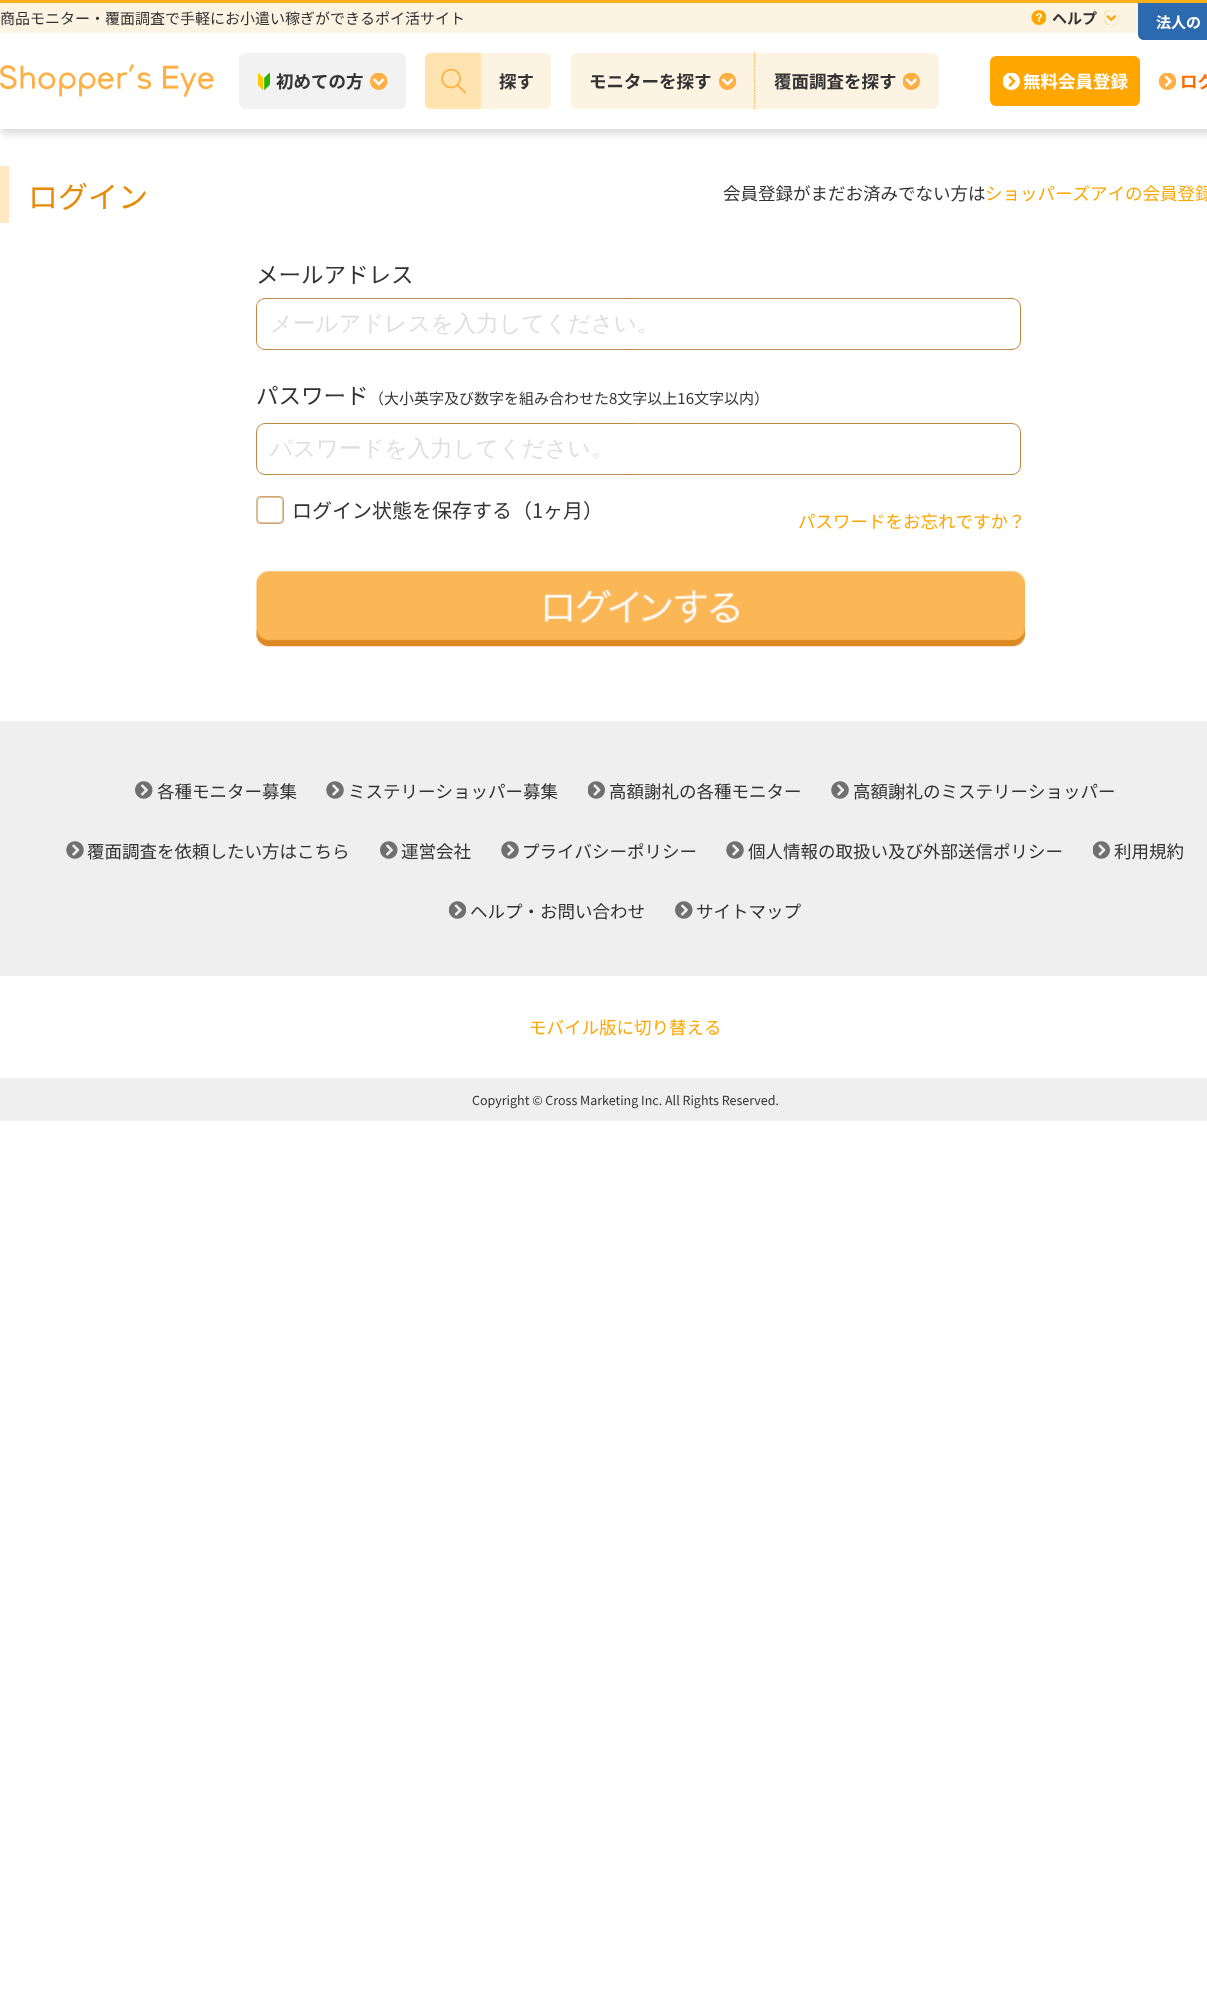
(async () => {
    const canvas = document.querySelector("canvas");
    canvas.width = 1207;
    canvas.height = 1990;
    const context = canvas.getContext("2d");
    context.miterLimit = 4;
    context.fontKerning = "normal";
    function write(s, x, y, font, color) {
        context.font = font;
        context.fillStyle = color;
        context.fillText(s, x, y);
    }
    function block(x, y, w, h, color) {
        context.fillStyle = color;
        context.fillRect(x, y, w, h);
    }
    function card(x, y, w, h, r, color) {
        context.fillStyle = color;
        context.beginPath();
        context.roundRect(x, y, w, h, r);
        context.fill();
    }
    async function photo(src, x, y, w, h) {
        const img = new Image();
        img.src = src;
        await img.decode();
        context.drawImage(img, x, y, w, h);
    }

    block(0, 0, 1207, 1990, "rgb(255, 255, 255)");
    context.save();
    context.beginPath();
    context.moveTo(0, 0);
    context.lineTo(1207, 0);
    context.lineTo(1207, 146);
    context.lineTo(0, 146);
    context.closePath();
    context.moveTo(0, 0);
    context.lineTo(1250, 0);
    context.lineTo(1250, 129);
    context.lineTo(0, 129);
    context.closePath();
    context.clip("evenodd");
    context.fillStyle = "rgba(0, 0, 0, 0.16)";
    context.filter = "blur(4px)";
    context.beginPath();
    context.rect(0, 4, 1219, 129);
    context.fill();
    context.filter = "none";
    context.restore();
    block(0, 0, 1207, 3, "rgb(255, 176, 22)");
    block(0, 3, 1138, 30, "rgb(252, 243, 226)");
    write("商品モニター・覆面調査で手軽にお小遣い稼ぎができるポイ活サイト", 0, 24, "100 15px Noto Sans JP", "rgb(51, 51, 51)");
    await photo("media/1.png", 1031, 10, 15, 15);
    write("ヘルプ", 1052, 24, "100 15px 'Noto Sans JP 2'", "rgb(51, 51, 51)");
    await photo("media/2.png", 1104, 10, 15, 15);
    context.fillStyle = "rgb(45, 105, 174)";
    context.beginPath();
    context.moveTo(1138, 3);
    context.lineTo(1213, 3);
    context.lineTo(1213, 34);
    context.bezierCurveTo(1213, 37.5, 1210.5, 40, 1207, 40);
    context.lineTo(1144, 40);
    context.bezierCurveTo(1140.5, 40, 1138, 37.5, 1138, 34);
    context.closePath();
    context.fill();
    write("法人の", 1156, 28, "100 15px 'Noto Sans JP 2'", "rgb(255, 255, 255)");
    await photo("media/3.png", 0, 64, 214, 34);
    card(239, 53, 167, 56, 6, "rgb(242, 242, 242)");
    await photo("media/4.png", 258, 73, 12, 17);
    write("初めての方", 276, 88, "100 17.5px 'Noto Sans JP 2'", "rgb(51, 51, 51)");
    await photo("media/5.png", 370, 73, 18, 17);
    card(425, 53, 126, 56, 6, "rgb(252, 243, 226)");
    context.fillStyle = "rgb(255, 228, 177)";
    context.beginPath();
    context.roundRect(425, 53, 56, 56, [6, 0, 0, 6]);
    context.fill();
    await photo("media/6.png", 441, 69, 25, 25);
    write("探す", 499, 88, "100 17.5px 'Noto Sans JP 2'", "rgb(51, 51, 51)");
    card(571, 53, 368, 56, 6, "rgb(252, 243, 226)");
    context.beginPath();
    context.moveTo(754.5, 52.5);
    context.lineTo(754.5, 109);
    context.strokeStyle = "rgb(255, 175, 67)";
    context.lineWidth = 1.2;
    context.setLineDash([1.25, 1.25]);
    context.stroke();
    write("モニターを探す", 589, 88, "100 17.5px 'Noto Sans JP 2'", "rgb(51, 51, 51)");
    await photo("media/7.png", 719, 73, 17, 17);
    write("覆面調査を探す", 774, 88, "100 17.5px 'Noto Sans JP 2'", "rgb(51, 51, 51)");
    await photo("media/8.png", 903, 73, 17, 17);
    card(990, 56, 150, 50, 6, "rgb(255, 166, 0)");
    await photo("media/9.png", 1003, 73, 17, 17);
    write("無料会員登録", 1023, 88, "100 17.5px 'Noto Sans JP 2'", "rgb(255, 255, 255)");
    await photo("media/10.png", 1159, 73, 17, 17);
    write("ログ", 1180, 88, "100 17.5px 'Noto Sans JP 2'", "rgb(255, 108, 0)");
    block(0, 166, 9, 57, "rgb(255, 232, 196)");
    write("ログイン", 28, 208, "100 30px Noto Sans JP", "rgb(231, 139, 7)");
    write("会員登録がまだお済みでない方は", 723, 200, "100 17.5px Noto Sans JP", "rgb(51, 51, 51)");
    write("ショッパーズアイの会員登録", 985, 200, "100 17.5px Noto Sans JP", "rgb(255, 166, 0)");
    write("メールアドレス", 256, 283, "100 22.5px Noto Sans JP", "rgb(51, 51, 51)");
    context.beginPath();
    context.roundRect(256.5, 298.5, 764, 51, 8.5);
    context.strokeStyle = "rgb(190, 138, 65)";
    context.lineWidth = 1;
    context.setLineDash([]);
    context.stroke();
    write("メールアドレスを入力してください。", 270, 331, "500 22.5px WenQuanYi Zen Hei", "rgb(222, 222, 222)");
    write("パスワード", 256, 404, "100 22.5px Noto Sans JP", "rgb(51, 51, 51)");
    write("（大小英字及び数字を組み合わせた8文字以上16文字以内）", 369, 404, "100 15px Noto Sans JP", "rgb(51, 51, 51)");
    context.beginPath();
    context.roundRect(256.5, 423.5, 764, 51, 8.5);
    context.stroke();
    write("パスワードを入力してください。", 270, 456, "500 22.5px WenQuanYi Zen Hei", "rgb(222, 222, 222)");
    await photo("media/11.png", 256, 496, 28, 28);
    write("ログイン状態を保存する（1ヶ月）", 292, 518, "100 20px Noto Sans JP", "rgb(51, 51, 51)");
    write("パスワードをお忘れですか？", 798, 528, "100 17.5px Noto Sans JP", "rgb(255, 166, 0)");
    await photo("media/12.png", 256, 571, 769, 76);
    block(0, 721, 1207, 400, "rgb(239, 239, 239)");
    await photo("media/13.png", 135, 781, 18, 18);
    write("各種モニター募集", 157, 798, "100 17.5px Noto Sans JP", "rgb(51, 51, 51)");
    await photo("media/14.png", 326, 781, 18, 18);
    write("ミステリーショッパー募集", 348, 798, "100 17.5px Noto Sans JP", "rgb(51, 51, 51)");
    await photo("media/15.png", 588, 781, 17, 18);
    write("高額謝礼の各種モニター", 609, 798, "100 17.5px Noto Sans JP", "rgb(51, 51, 51)");
    await photo("media/14.png", 831, 781, 18, 18);
    write("高額謝礼のミステリーショッパー", 853, 798, "100 17.5px Noto Sans JP", "rgb(51, 51, 51)");
    await photo("media/14.png", 66, 841, 18, 18);
    write("覆面調査を依頼したい方はこちら", 87, 858, "100 17.5px Noto Sans JP", "rgb(51, 51, 51)");
    await photo("media/13.png", 380, 841, 18, 18);
    write("運営会社", 401, 858, "100 17.5px Noto Sans JP", "rgb(51, 51, 51)");
    await photo("media/14.png", 501, 841, 18, 18);
    write("プライバシーポリシー", 522, 858, "100 17.5px Noto Sans JP", "rgb(51, 51, 51)");
    await photo("media/14.png", 726, 841, 18, 18);
    write("個人情報の取扱い及び外部送信ポリシー", 748, 858, "100 17.5px Noto Sans JP", "rgb(51, 51, 51)");
    await photo("media/15.png", 1093, 841, 17, 18);
    write("利用規約", 1114, 858, "100 17.5px Noto Sans JP", "rgb(51, 51, 51)");
    await photo("media/16.png", 449, 901, 17, 18);
    write("ヘルプ・お問い合わせ", 470, 918, "100 17.5px Noto Sans JP", "rgb(51, 51, 51)");
    await photo("media/13.png", 675, 901, 18, 18);
    write("サイトマップ", 696, 918, "100 17.5px Noto Sans JP", "rgb(51, 51, 51)");
    block(0, 976, 1207, 102, "rgb(255, 255, 255)");
    write("モバイル版に切り替える", 529, 1034, "100 17.5px Noto Sans JP", "rgb(255, 166, 0)");
    write("Copyright © Cross Marketing Inc. All Rights Reserved.", 472, 1105, "100 12.5px Noto Sans JP", "rgb(51, 51, 51)");
})();
